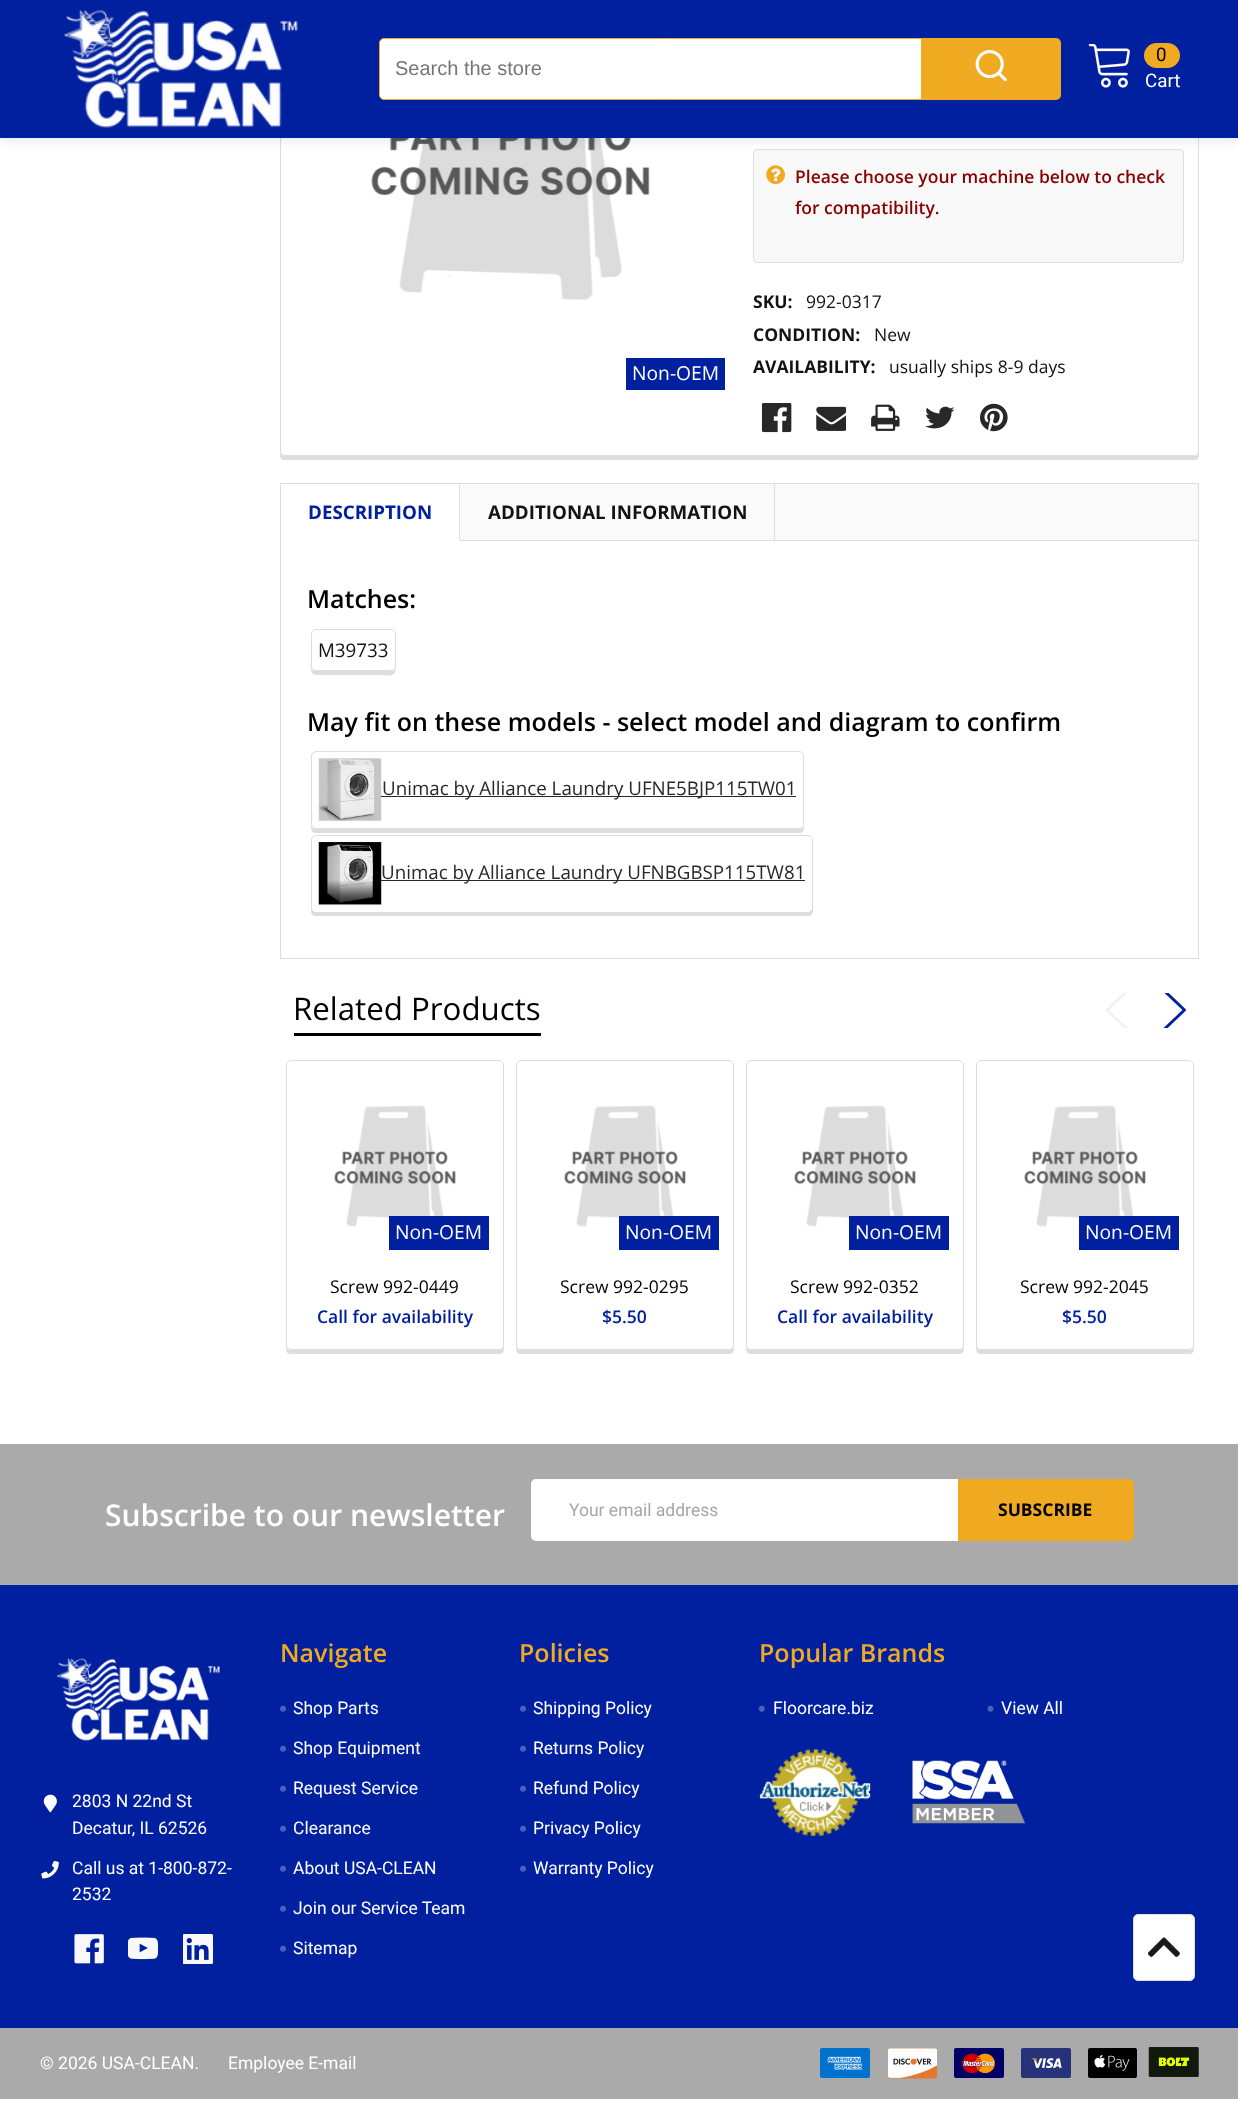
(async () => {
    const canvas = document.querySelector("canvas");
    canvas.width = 1238;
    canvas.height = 2106;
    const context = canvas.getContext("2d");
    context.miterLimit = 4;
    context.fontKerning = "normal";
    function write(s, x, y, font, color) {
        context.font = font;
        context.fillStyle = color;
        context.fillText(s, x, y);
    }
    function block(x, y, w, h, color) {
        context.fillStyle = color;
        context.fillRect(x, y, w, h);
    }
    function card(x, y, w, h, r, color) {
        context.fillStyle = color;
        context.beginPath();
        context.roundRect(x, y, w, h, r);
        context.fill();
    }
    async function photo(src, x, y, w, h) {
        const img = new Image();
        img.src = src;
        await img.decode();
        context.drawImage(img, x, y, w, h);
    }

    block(0, 0, 1238, 2106, "rgb(255, 255, 255)");
    context.fillStyle = "rgb(221, 221, 221)";
    context.beginPath();
    context.moveTo(280, 451);
    context.lineTo(280, 455);
    context.bezierCurveTo(280, 458, 282, 460, 285, 460);
    context.lineTo(1194, 460);
    context.bezierCurveTo(1197, 460, 1199, 458, 1199, 455);
    context.lineTo(1199, -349);
    context.lineTo(1199, 451);
    context.bezierCurveTo(1199, 454, 1197, 456, 1194, 456);
    context.lineTo(285, 456);
    context.bezierCurveTo(282, 456, 280, 454, 280, 451);
    context.closePath();
    context.fill();
    context.fillStyle = "rgb(255, 255, 255)";
    context.beginPath();
    context.roundRect(280.5, -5.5, 918, 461, 4.5);
    context.fill();
    context.strokeStyle = "rgb(221, 221, 221)";
    context.stroke();
    await photo("media/4.png", 371, 138, 279, 162);
    context.fillStyle = "rgb(248, 248, 248)";
    context.beginPath();
    context.roundRect(753.5, 149.5, 430, 113, 3.5);
    context.fill();
    context.stroke();
    context.fillStyle = "rgba(0, 0, 0, 0.1)";
    context.filter = "blur(6px)";
    context.beginPath();
    context.rect(0, 3, 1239, 137);
    context.fill();
    context.filter = "none";
    block(0, 0, 1238, 138, "rgb(0, 32, 159)");
    await photo("media/1.png", 63, 10, 235, 118);
    context.fillStyle = "rgb(255, 255, 255)";
    context.beginPath();
    context.roundRect(379.5, 38.5, 556, 61, 4.5);
    context.fill();
    context.strokeStyle = "rgb(239, 170, 34)";
    context.stroke();
    write("Search the store", 395, 75, "20px Liberation Sans", "rgb(117, 117, 117)");
    context.fillStyle = "rgb(239, 170, 34)";
    context.beginPath();
    context.roundRect(921, 38, 140, 62, [0, 5, 5, 0]);
    context.fill();
    await photo("media/2.png", 975, 50, 32, 31);
    await photo("media/3.png", 1088, 44, 42, 44);
    card(1144, 43, 36, 25, 12.5, "rgb(239, 170, 34)");
    write("0", 1156, 61, "18.75px Roboto", "rgb(0, 0, 0)");
    write("Cart", 1145, 87, "18.75px Roboto", "rgb(255, 255, 255)");
    block(626, 358, 99, 32, "rgb(0, 32, 159)");
    write("Non-OEM", 632, 380, "19.25px Open Sans", "rgb(255, 255, 255)");
    await photo("media/5.png", 766, 165, 19, 20);
    write("Please choose your machine below to check", 795, 183, "600 17.5px Open Sans", "rgb(136, 0, 0)");
    write("for compatibility.", 795, 214, "600 17.5px Open Sans", "rgb(136, 0, 0)");
    write("SKU:", 753, 308, "bold 17.5px Open Sans", "rgb(19, 19, 19)");
    write("992-0317", 806, 308, "17.5px Open Sans", "rgb(19, 19, 19)");
    write("CONDITION:", 753, 341, "bold 17.5px Open Sans", "rgb(19, 19, 19)");
    write("New", 874, 341, "17.5px Open Sans", "rgb(19, 19, 19)");
    write("AVAILABILITY:", 753, 373, "bold 17.5px Open Sans", "rgb(19, 19, 19)");
    write("usually ships 8-9 days", 889, 373, "17.5px Open Sans", "rgb(19, 19, 19)");
    await photo("media/6.png", 761, 403, 31, 30);
    await photo("media/7.png", 816, 406, 30, 25);
    await photo("media/8.png", 871, 404, 29, 27);
    await photo("media/9.png", 925, 406, 30, 23);
    await photo("media/10.png", 980, 403, 28, 29);
    context.strokeStyle = "rgb(221, 221, 221)";
    context.strokeRect(280.5, 483.5, 918, 475);
    block(460, 484, 738, 56, "rgb(250, 250, 250)");
    block(460, 540, 738, 1, "rgb(221, 221, 221)");
    block(459, 484, 1, 57, "rgb(221, 221, 221)");
    context.fillStyle = "rgb(255, 255, 255)";
    context.beginPath();
    context.moveTo(460, 541);
    context.lineTo(281, 541);
    context.lineTo(282, 540);
    context.lineTo(459, 540);
    context.closePath();
    context.fill();
    write("DESCRIPTION", 308, 519, "bold 18.75px Open Sans", "rgb(0, 32, 159)");
    block(774, 484, 1, 56, "rgb(221, 221, 221)");
    write("ADDITIONAL INFORMATION", 488, 519, "bold 18.75px Open Sans", "rgb(19, 19, 19)");
    write("Matches:", 307, 608, "600 25px Open Sans", "rgb(0, 0, 0)");
    context.fillStyle = "rgb(221, 221, 221)";
    context.beginPath();
    context.moveTo(311, 636);
    context.lineTo(311, 659);
    context.bezierCurveTo(311, 663, 309, 675, 316, 675);
    context.lineTo(378, 675);
    context.bezierCurveTo(387, 675, 396, 678, 396, 668);
    context.bezierCurveTo(395, 670, 393, 671, 391, 671);
    context.lineTo(316, 671);
    context.bezierCurveTo(313, 671, 311, 669, 311, 666);
    context.closePath();
    context.fill();
    context.beginPath();
    context.roundRect(311.5, 629.5, 84, 41, 4.5);
    context.stroke();
    write("M39733", 318, 657, "18.75px Open Sans", "rgb(19, 19, 19)");
    write("May fit on these models - select model and diagram to confirm", 307, 731, "600 25px Open Sans", "rgb(0, 0, 0)");
    context.fillStyle = "rgb(221, 221, 221)";
    context.beginPath();
    context.moveTo(311, 758);
    context.lineTo(311, 828);
    context.bezierCurveTo(311, 831, 313, 833, 316, 833);
    context.lineTo(799, 833);
    context.bezierCurveTo(802, 833, 804, 831, 804, 828);
    context.lineTo(804, 758);
    context.lineTo(804, 824);
    context.bezierCurveTo(804, 827, 802, 829, 799, 829);
    context.lineTo(316, 829);
    context.bezierCurveTo(313, 829, 311, 827, 311, 824);
    context.closePath();
    context.fill();
    context.beginPath();
    context.roundRect(311.5, 751.5, 492, 77, 4.5);
    context.stroke();
    await photo("media/11.png", 318, 758, 64, 63);
    block(381, 796, 415, 1, "rgb(40, 40, 40)");
    write("Unimac by Alliance Laundry UFNE5BJP115TW01", 382, 795, "18.75px Open Sans", "rgb(40, 40, 40)");
    context.fillStyle = "rgb(221, 221, 221)";
    context.beginPath();
    context.moveTo(311, 842);
    context.lineTo(311, 911);
    context.bezierCurveTo(311, 914, 313, 916, 316, 916);
    context.lineTo(808, 916);
    context.bezierCurveTo(811, 916, 813, 914, 813, 911);
    context.lineTo(813, 844);
    context.lineTo(812, 842);
    context.lineTo(812, 908);
    context.bezierCurveTo(812, 910, 810, 912, 808, 912);
    context.lineTo(316, 912);
    context.bezierCurveTo(313, 912, 311, 910, 311, 908);
    context.closePath();
    context.fill();
    context.beginPath();
    context.roundRect(311.5, 835.5, 501, 77, 4.5);
    context.stroke();
    await photo("media/12.png", 318, 842, 64, 63);
    block(381, 880, 424, 1, "rgb(40, 40, 40)");
    write("Unimac by Alliance Laundry UFNBGBSP115TW81", 381, 879, "18.75px Open Sans", "rgb(40, 40, 40)");
    block(294, 1033, 247, 3, "rgb(0, 0, 0)");
    write("Related Products", 293, 1020, "31.25px Open Sans", "rgb(0, 0, 0)");
    context.save();
    context.beginPath();
    context.rect(1105, 993, 35, 35);
    context.clip();
    context.beginPath();
    context.moveTo(1137, 981.5);
    context.lineTo(1107, 1010);
    context.lineTo(1137, 1038.5);
    context.strokeStyle = "rgb(240, 242, 249)";
    context.lineWidth = 2.9;
    context.lineCap = "round";
    context.lineJoin = "round";
    context.stroke();
    context.restore();
    context.save();
    context.beginPath();
    context.rect(1153, 993, 33, 35);
    context.clip();
    context.beginPath();
    context.moveTo(1154.5, 981.5);
    context.lineTo(1184.5, 1010);
    context.lineTo(1154.5, 1038.5);
    context.strokeStyle = "rgb(0, 32, 159)";
    context.lineWidth = 2.9;
    context.lineCap = "round";
    context.lineJoin = "round";
    context.stroke();
    context.restore();
    context.fillStyle = "rgb(221, 221, 221)";
    context.beginPath();
    context.moveTo(286, 1067);
    context.lineTo(286, 1349);
    context.bezierCurveTo(286, 1352, 288, 1354, 291, 1354);
    context.lineTo(499, 1354);
    context.bezierCurveTo(502, 1354, 504, 1352, 504, 1349);
    context.lineTo(504, 1067);
    context.lineTo(504, 1345);
    context.bezierCurveTo(504, 1348, 502, 1350, 499, 1350);
    context.lineTo(291, 1350);
    context.bezierCurveTo(288, 1350, 286, 1348, 286, 1345);
    context.closePath();
    context.fill();
    context.fillStyle = "rgb(255, 255, 255)";
    context.beginPath();
    context.roundRect(286.5, 1060.5, 217, 289, 4.5);
    context.fill();
    context.stroke();
    await photo("media/13.png", 334, 1105, 122, 125);
    block(389, 1216, 100, 34, "rgb(0, 32, 159)");
    write("Non-OEM", 395, 1239, "19.25px Open Sans", "rgb(255, 255, 255)");
    write("Screw 992-0449", 330, 1293, "17.5px Open Sans", "rgb(0, 0, 0)");
    write("Call for availability", 317, 1323, "600 17.5px Open Sans", "rgb(0, 32, 159)");
    context.fillStyle = "rgb(221, 221, 221)";
    context.beginPath();
    context.moveTo(516, 1067);
    context.lineTo(516, 1349);
    context.bezierCurveTo(516, 1352, 518, 1354, 521, 1354);
    context.lineTo(729, 1354);
    context.bezierCurveTo(732, 1354, 734, 1352, 734, 1349);
    context.lineTo(734, 1067);
    context.lineTo(734, 1345);
    context.bezierCurveTo(734, 1348, 732, 1350, 729, 1350);
    context.lineTo(521, 1350);
    context.bezierCurveTo(518, 1350, 516, 1348, 516, 1345);
    context.closePath();
    context.fill();
    context.fillStyle = "rgb(255, 255, 255)";
    context.beginPath();
    context.roundRect(516.5, 1060.5, 217, 289, 4.5);
    context.fill();
    context.stroke();
    await photo("media/13.png", 564, 1105, 122, 125);
    block(619, 1216, 100, 34, "rgb(0, 32, 159)");
    write("Non-OEM", 625, 1239, "19.25px Open Sans", "rgb(255, 255, 255)");
    write("Screw 992-0295", 560, 1293, "17.5px Open Sans", "rgb(0, 0, 0)");
    write("$5.50", 602, 1323, "600 17.5px Open Sans", "rgb(0, 32, 159)");
    context.fillStyle = "rgb(221, 221, 221)";
    context.beginPath();
    context.moveTo(746, 1067);
    context.lineTo(746, 1349);
    context.bezierCurveTo(746, 1352, 748, 1354, 751, 1354);
    context.lineTo(959, 1354);
    context.bezierCurveTo(962, 1354, 964, 1352, 964, 1349);
    context.lineTo(964, 1067);
    context.lineTo(964, 1345);
    context.bezierCurveTo(964, 1348, 962, 1350, 959, 1350);
    context.lineTo(751, 1350);
    context.bezierCurveTo(748, 1350, 746, 1348, 746, 1345);
    context.closePath();
    context.fill();
    context.fillStyle = "rgb(255, 255, 255)";
    context.beginPath();
    context.roundRect(746.5, 1060.5, 217, 289, 4.5);
    context.fill();
    context.stroke();
    await photo("media/14.png", 794, 1105, 122, 125);
    block(849, 1216, 100, 34, "rgb(0, 32, 159)");
    write("Non-OEM", 855, 1239, "19.25px Open Sans", "rgb(255, 255, 255)");
    write("Screw 992-0352", 790, 1293, "17.5px Open Sans", "rgb(0, 0, 0)");
    write("Call for availability", 777, 1323, "600 17.5px Open Sans", "rgb(0, 32, 159)");
    context.fillStyle = "rgb(221, 221, 221)";
    context.beginPath();
    context.moveTo(976, 1067);
    context.lineTo(976, 1349);
    context.bezierCurveTo(976, 1352, 978, 1354, 981, 1354);
    context.lineTo(1189, 1354);
    context.bezierCurveTo(1192, 1354, 1194, 1352, 1194, 1349);
    context.lineTo(1194, 1067);
    context.lineTo(1194, 1345);
    context.bezierCurveTo(1194, 1348, 1192, 1350, 1189, 1350);
    context.lineTo(981, 1350);
    context.bezierCurveTo(978, 1350, 976, 1348, 976, 1345);
    context.closePath();
    context.fill();
    context.fillStyle = "rgb(255, 255, 255)";
    context.beginPath();
    context.roundRect(976.5, 1060.5, 217, 289, 4.5);
    context.fill();
    context.stroke();
    await photo("media/13.png", 1024, 1105, 122, 125);
    block(1079, 1216, 100, 34, "rgb(0, 32, 159)");
    write("Non-OEM", 1085, 1239, "19.25px Open Sans", "rgb(255, 255, 255)");
    write("Screw 992-2045", 1020, 1293, "17.5px Open Sans", "rgb(0, 0, 0)");
    write("$5.50", 1062, 1323, "600 17.5px Open Sans", "rgb(0, 32, 159)");
    block(0, 1585, 1238, 443, "rgb(0, 32, 159)");
    block(0, 1444, 1238, 141, "rgb(170, 170, 170)");
    write("Subscribe to our newsletter", 105, 1526, "600 30px Open Sans", "rgb(255, 255, 255)");
    context.beginPath();
    context.roundRect(531, 1479, 427, 62, [5, 0, 0, 5]);
    context.fill();
    write("Your email address", 569, 1516, "17.5px Roboto", "rgb(165, 165, 165)");
    context.fillStyle = "rgb(239, 170, 34)";
    context.beginPath();
    context.roundRect(958.5, 1479.5, 175, 61, [0, 4.5, 4.5, 0]);
    context.fill();
    context.strokeStyle = "rgb(239, 170, 34)";
    context.stroke();
    write("SUBSCRIBE", 998, 1516, "bold 17.5px Open Sans", "rgb(0, 0, 0)");
    write("Navigate", 280, 1662, "600 25px Open Sans", "rgb(239, 170, 34)");
    await photo("media/15.png", 280, 1705, 6, 7);
    write("Shop Parts", 293, 1714, "17.5px Roboto", "rgb(255, 255, 255)");
    await photo("media/15.png", 280, 1745, 6, 7);
    write("Shop Equipment", 293, 1754, "17.5px Roboto", "rgb(255, 255, 255)");
    await photo("media/15.png", 280, 1785, 6, 7);
    write("Request Service", 293, 1794, "17.5px Roboto", "rgb(255, 255, 255)");
    await photo("media/15.png", 280, 1825, 6, 7);
    write("Clearance", 293, 1834, "17.5px Roboto", "rgb(255, 255, 255)");
    await photo("media/15.png", 280, 1865, 6, 7);
    write("About USA-CLEAN", 293, 1874, "17.5px Roboto", "rgb(255, 255, 255)");
    await photo("media/15.png", 280, 1905, 6, 7);
    write("Join our Service Team", 293, 1914, "17.5px Roboto", "rgb(255, 255, 255)");
    await photo("media/15.png", 280, 1945, 6, 7);
    write("Sitemap", 293, 1954, "17.5px Roboto", "rgb(255, 255, 255)");
    write("Policies", 519, 1662, "600 25px Open Sans", "rgb(239, 170, 34)");
    await photo("media/15.png", 520, 1705, 6, 7);
    write("Shipping Policy", 533, 1714, "17.5px Roboto", "rgb(255, 255, 255)");
    await photo("media/15.png", 520, 1745, 6, 7);
    write("Returns Policy", 533, 1754, "17.5px Roboto", "rgb(255, 255, 255)");
    await photo("media/15.png", 520, 1785, 6, 7);
    write("Refund Policy", 533, 1794, "17.5px Roboto", "rgb(255, 255, 255)");
    await photo("media/15.png", 520, 1825, 6, 7);
    write("Privacy Policy", 533, 1834, "17.5px Roboto", "rgb(255, 255, 255)");
    await photo("media/15.png", 520, 1865, 6, 7);
    write("Warranty Policy", 533, 1874, "17.5px Roboto", "rgb(255, 255, 255)");
    write("Popular Brands", 759, 1662, "600 25px Open Sans", "rgb(239, 170, 34)");
    await photo("media/16.png", 758, 1705, 7, 7);
    write("Floorcare.biz", 773, 1714, "17.5px Roboto", "rgb(255, 255, 255)");
    await photo("media/17.png", 987, 1705, 7, 7);
    write("View All", 1001, 1714, "17.5px Roboto", "rgb(255, 255, 255)");
    await photo("media/18.png", 759, 1749, 112, 87);
    await photo("media/19.png", 912, 1760, 113, 64);
    await photo("media/20.png", 56, 1658, 164, 83);
    await photo("media/21.png", 43, 1794, 14, 19);
    write("2803 N 22nd St", 72, 1807, "17.5px Roboto", "rgb(255, 255, 255)");
    write("Decatur, IL 62526", 72, 1834, "17.5px Roboto", "rgb(255, 255, 255)");
    await photo("media/22.png", 41, 1861, 18, 18);
    write("Call us at 1-800-872-", 72, 1874, "17.5px Roboto", "rgb(255, 255, 255)");
    write("2532", 72, 1900, "17.5px Roboto", "rgb(255, 255, 255)");
    await photo("media/23.png", 74, 1934, 30, 30);
    await photo("media/24.png", 128, 1937, 30, 23);
    await photo("media/25.png", 183, 1934, 30, 30);
    block(0, 2028, 1238, 71, "rgb(170, 170, 170)");
    write("© 2026 USA-CLEAN.", 40, 2069, "17.5px Roboto", "rgb(255, 255, 255)");
    write("Employee E-mail", 228, 2069, "17.5px Roboto", "rgb(255, 255, 255)");
    await photo("media/26.png", 820, 2048, 50, 30);
    await photo("media/27.png", 888, 2047, 49, 32);
    await photo("media/28.png", 954, 2048, 50, 30);
    await photo("media/29.png", 1021, 2048, 50, 30);
    await photo("media/30.png", 1088, 2048, 49, 30);
    await photo("media/31.png", 1148, 2047, 51, 30);
    context.beginPath();
    context.roundRect(1133.5, 1914.5, 61, 66, 4.5);
    context.fill();
    context.strokeStyle = "rgb(224, 225, 228)";
    context.stroke();
    await photo("media/32.png", 1148, 1937, 32, 20);
})();
